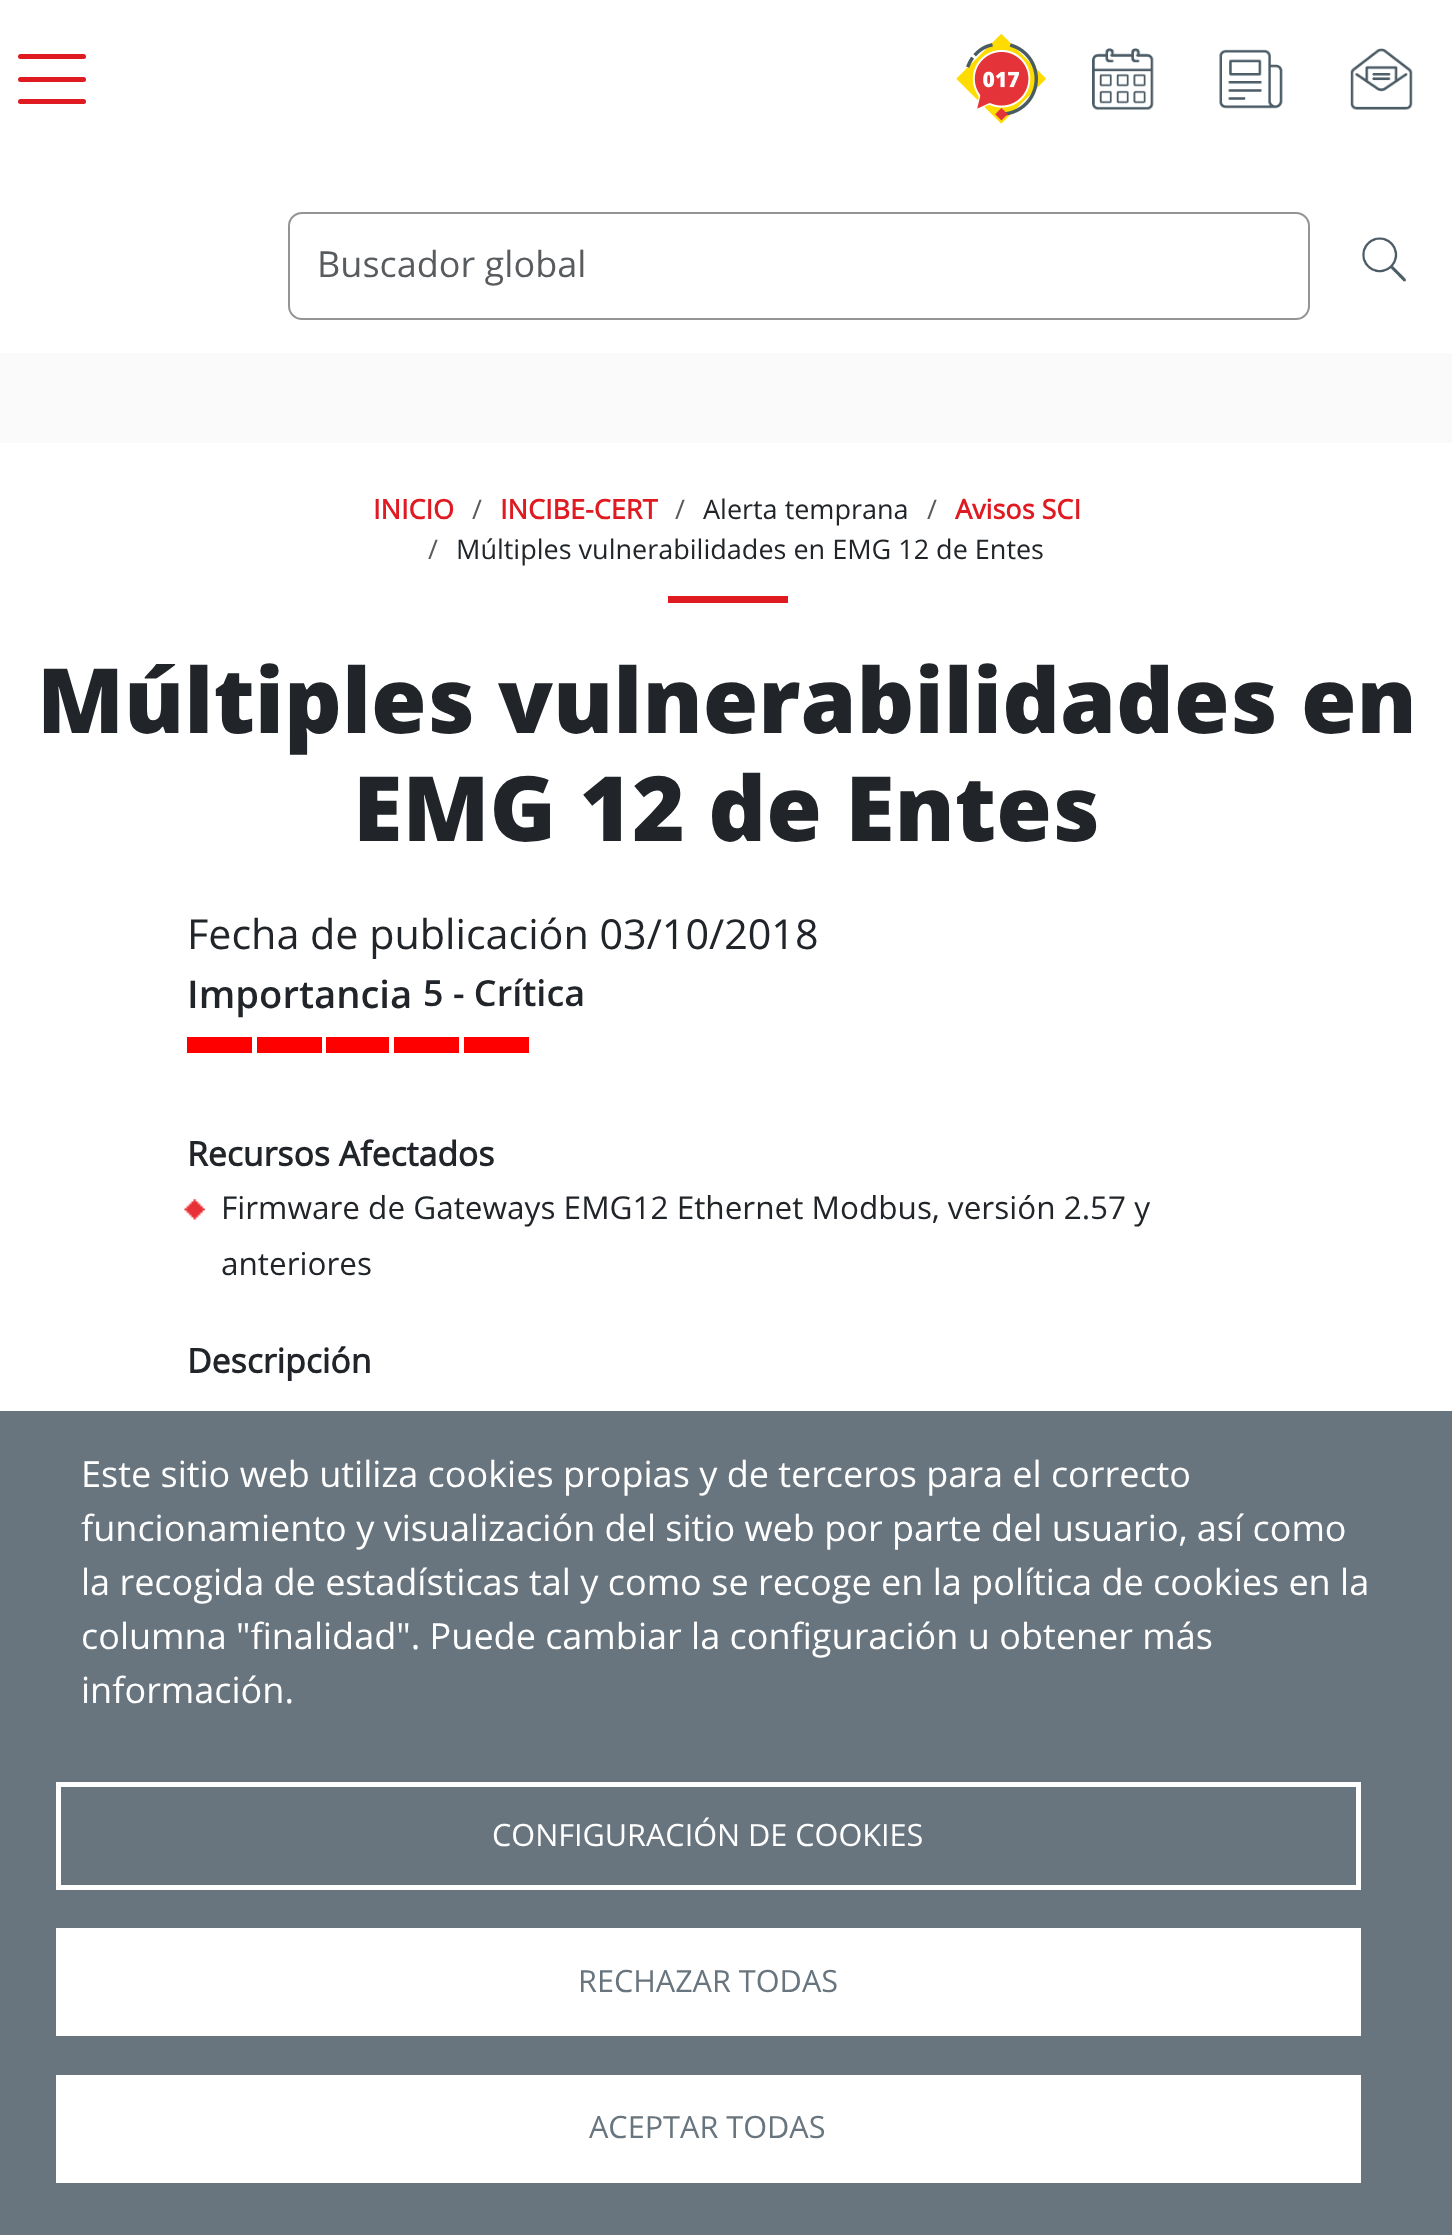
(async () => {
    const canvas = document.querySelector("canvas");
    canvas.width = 1452;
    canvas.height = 2235;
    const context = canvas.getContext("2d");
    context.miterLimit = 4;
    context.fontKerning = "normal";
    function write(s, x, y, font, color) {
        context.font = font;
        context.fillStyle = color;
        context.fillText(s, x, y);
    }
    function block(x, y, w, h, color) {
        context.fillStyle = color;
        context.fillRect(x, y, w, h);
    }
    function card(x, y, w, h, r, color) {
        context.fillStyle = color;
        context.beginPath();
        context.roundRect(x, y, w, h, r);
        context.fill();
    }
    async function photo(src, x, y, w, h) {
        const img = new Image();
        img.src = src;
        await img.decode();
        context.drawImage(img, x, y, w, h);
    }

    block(0, 0, 1452, 2235, "rgb(250, 250, 250)");
    block(0, 0, 1452, 353, "rgb(255, 255, 255)");
    card(18, 54, 68, 5, 2.5, "rgb(223, 26, 33)");
    card(18, 77, 68, 5, 2.5, "rgb(223, 26, 33)");
    card(18, 99, 68, 5, 2.5, "rgb(223, 26, 33)");
    await photo("media/1.png", 956, 34, 90, 90);
    await photo("media/2.png", 1092, 48, 62, 62);
    await photo("media/3.png", 1219, 49, 64, 60);
    await photo("media/4.png", 1350, 48, 63, 62);
    context.beginPath();
    context.roundRect(289, 213, 1020, 106, 13);
    context.strokeStyle = "rgb(148, 148, 148)";
    context.lineWidth = 2;
    context.stroke();
    write("Buscador global", 317, 277, "36px Open Sans", "rgb(89, 92, 95)");
    await photo("media/5.png", 1362, 237, 44, 45);
    block(0, 443, 1452, 968, "rgb(255, 255, 255)");
    write("INICIO", 373, 519, "bold 27px Open Sans", "rgb(223, 26, 33)");
    write("/", 472, 519, "27px Open Sans", "rgb(89, 92, 95)");
    write("INCIBE-CERT", 500, 519, "bold 27px Open Sans", "rgb(223, 26, 33)");
    write("/", 675, 519, "27px Open Sans", "rgb(89, 92, 95)");
    write("Alerta temprana", 703, 519, "27px Open Sans", "rgb(33, 37, 41)");
    write("/", 927, 519, "27px Open Sans", "rgb(89, 92, 95)");
    write("Avisos SCI", 955, 519, "bold 27px Open Sans", "rgb(223, 26, 33)");
    write("/", 428, 559, "27px Open Sans", "rgb(89, 92, 95)");
    write("Múltiples vulnerabilidades en EMG 12 de Entes", 456, 559, "27px Open Sans", "rgb(33, 37, 41)");
    block(668, 596, 120, 7, "rgb(223, 26, 33)");
    write("Múltiples vulnerabilidades en", 37, 733, "800 90px Open Sans", "rgb(33, 37, 41)");
    write("EMG 12 de Entes", 353, 841, "800 90px Open Sans", "rgb(33, 37, 41)");
    write("Fecha de publicación 03/10/2018", 187, 949, "41.25px Open Sans", "rgb(33, 37, 41)");
    write("Importancia", 187, 1008, "600 38.25px Open Sans", "rgb(33, 37, 41)");
    write("5 - Crítica", 423, 1006, "600 36px Open Sans", "rgb(33, 37, 41)");
    block(187, 1037, 65, 16, "rgb(255, 0, 0)");
    block(257, 1037, 65, 16, "rgb(255, 0, 0)");
    block(326, 1037, 63, 16, "rgb(255, 0, 0)");
    block(394, 1037, 65, 16, "rgb(255, 0, 0)");
    block(464, 1037, 65, 16, "rgb(255, 0, 0)");
    write("Recursos Afectados", 187, 1166, "bold 33.75px Open Sans", "rgb(33, 37, 41)");
    await photo("media/6.png", 184, 1199, 21, 21);
    write("Firmware de Gateways EMG12 Ethernet Modbus, versión 2.57 y", 221, 1219, "31.5px Open Sans", "rgb(33, 37, 41)");
    write("anteriores", 221, 1275, "31.5px Open Sans", "rgb(33, 37, 41)");
    write("Descripción", 187, 1373, "bold 33.75px Open Sans", "rgb(33, 37, 41)");
    block(0, 1411, 1452, 824, "rgb(104, 117, 126)");
    write("Este sitio web utiliza cookies propias y de terceros para el correcto", 81, 1487, "36px Open Sans", "rgb(255, 255, 255)");
    write("funcionamiento y visualización del sitio web por parte del usuario, así como", 81, 1541, "36px Open Sans", "rgb(255, 255, 255)");
    write("la recogida de estadísticas tal y como se recoge en la política de cookies en la", 81, 1595, "36px Open Sans", "rgb(255, 255, 255)");
    write("columna \"finalidad\". Puede cambiar la configuración u obtener más", 81, 1649, "36px Open Sans", "rgb(255, 255, 255)");
    write("información.", 81, 1703, "36px Open Sans", "rgb(255, 255, 255)");
    context.strokeStyle = "rgb(255, 255, 255)";
    context.lineWidth = 5;
    context.strokeRect(58.5, 1784.5, 1300, 103);
    write("CONFIGURACIÓN DE COOKIES", 492, 1846, "30.6px Open Sans", "rgb(255, 255, 255)");
    block(56, 1928, 1305, 108, "rgb(255, 255, 255)");
    write("RECHAZAR TODAS", 578, 1992, "30.6px Open Sans", "rgb(104, 117, 126)");
    block(56, 2075, 1305, 108, "rgb(255, 255, 255)");
    write("ACEPTAR TODAS", 589, 2138, "30.6px Open Sans", "rgb(104, 117, 126)");
})();
